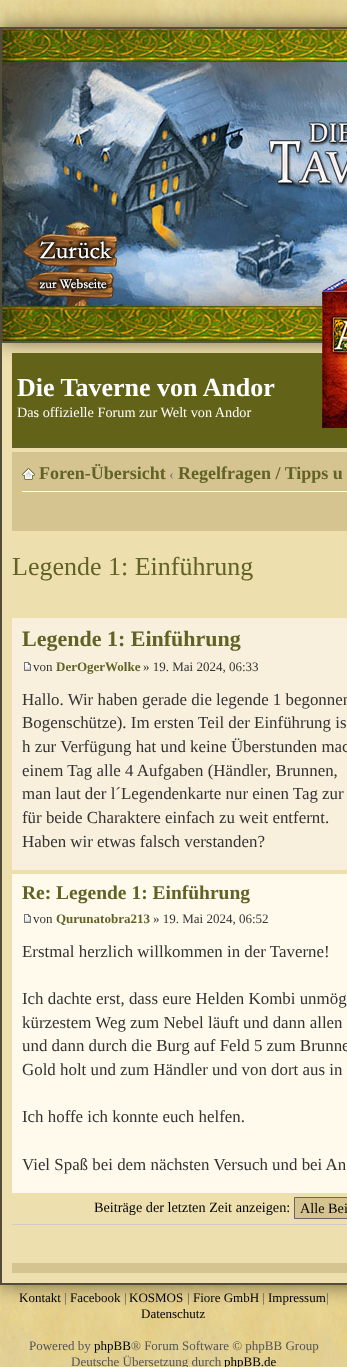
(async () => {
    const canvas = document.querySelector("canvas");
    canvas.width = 347;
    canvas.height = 1367;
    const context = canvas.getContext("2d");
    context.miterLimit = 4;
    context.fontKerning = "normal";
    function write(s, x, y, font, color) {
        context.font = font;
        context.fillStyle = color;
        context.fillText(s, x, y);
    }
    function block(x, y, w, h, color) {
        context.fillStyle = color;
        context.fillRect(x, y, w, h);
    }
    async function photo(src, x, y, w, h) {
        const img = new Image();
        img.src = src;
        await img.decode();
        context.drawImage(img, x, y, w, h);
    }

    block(0, 0, 347, 1367, "rgb(255, 255, 255)");
    await photo("media/1.png", 0, 0, 347, 1367);
    context.fillStyle = "rgb(105, 95, 63)";
    context.filter = "blur(10px)";
    context.beginPath();
    context.rect(0, 341, 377, 944);
    context.fill();
    context.filter = "none";
    context.strokeStyle = "rgb(82, 77, 57)";
    context.lineWidth = 2;
    context.strokeRect(1, 342, 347, 942);
    block(2, 343, 345, 940, "rgb(237, 223, 174)");
    context.fillStyle = "rgb(105, 95, 63)";
    context.filter = "blur(10px)";
    context.beginPath();
    context.rect(0, 27, 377, 314);
    context.fill();
    context.filter = "none";
    await photo("media/2.png", 2, 29, 345, 312);
    block(0, 27, 347, 2, "rgb(82, 77, 57)");
    block(0, 27, 2, 314, "rgb(82, 77, 57)");
    await photo("media/3.png", 22, 221, 96, 85);
    block(12, 353, 335, 92, "rgb(98, 98, 24)");
    await photo("media/4.png", 322, 279, 25, 149);
    block(12, 445, 335, 3, "rgb(97, 98, 37)");
    write("Die Taverne von Andor", 17, 396, "bold 26px Liberation Serif", "rgb(255, 255, 255)");
    write("Das offizielle Forum zur Welt von Andor", 17, 417, "14.25px Liberation Serif", "rgb(255, 255, 255)");
    block(12, 452, 335, 79, "rgb(214, 196, 144)");
    block(22, 491, 325, 1, "rgb(255, 255, 255)");
    await photo("media/5.png", 22, 468, 13, 12);
    write("Foren-Übersicht", 39, 479, "bold 18px Liberation Serif", "rgb(97, 98, 37)");
    write("‹", 169, 479, "bold 14.25px Liberation Serif", "rgb(130, 130, 130)");
    write("Regelfragen / Tipps u", 178, 479, "bold 18px Liberation Serif", "rgb(97, 98, 37)");
    write("Legende 1: Einführung", 12, 575, "26px Liberation Serif", "rgb(97, 98, 37)");
    block(12, 618, 335, 252, "rgb(248, 240, 220)");
    write("Legende 1: Einführung", 22, 646, "bold 22px Liberation Serif", "rgb(97, 98, 37)");
    await photo("media/6.png", 24, 662, 7, 9);
    write("von", 33, 671, "13px Liberation Serif", "rgb(51, 51, 51)");
    write("DerOgerWolke", 56, 671, "bold 13px Liberation Serif", "rgb(97, 98, 37)");
    write("» 19. Mai 2024, 06:33", 143, 671, "13px Liberation Serif", "rgb(51, 51, 51)");
    write("Hallo. Wir haben gerade die legende 1 begonnen", 22, 705, "16.9px Liberation Serif", "rgb(51, 51, 51)");
    write("Bogenschütze). Im ersten Teil der Einführung is", 22, 728, "16.9px Liberation Serif", "rgb(51, 51, 51)");
    write("h zur Verfügung hat und keine Überstunden mac", 22, 752, "16.9px Liberation Serif", "rgb(51, 51, 51)");
    write("einem Tag alle 4 Aufgaben (Händler, Brunnen,", 22, 776, "16.9px Liberation Serif", "rgb(51, 51, 51)");
    write("man laut der l´Legendenkarte nur einen Tag zur", 22, 799, "16.9px Liberation Serif", "rgb(51, 51, 51)");
    write("für beide Charaktere einfach zu weit entfernt.", 22, 823, "16.9px Liberation Serif", "rgb(51, 51, 51)");
    write("Haben wir etwas falsch verstanden?", 22, 847, "16.9px Liberation Serif", "rgb(51, 51, 51)");
    block(12, 874, 335, 319, "rgb(255, 250, 236)");
    write("Re: Legende 1: Einführung", 22, 899, "bold 19.5px Liberation Serif", "rgb(97, 98, 37)");
    await photo("media/7.png", 24, 914, 7, 9);
    write("von", 33, 923, "13px Liberation Serif", "rgb(51, 51, 51)");
    write("Qurunatobra213", 56, 923, "bold 13px Liberation Serif", "rgb(97, 98, 37)");
    write("» 19. Mai 2024, 06:52", 153, 923, "13px Liberation Serif", "rgb(51, 51, 51)");
    write("Erstmal herzlich willkommen in der Taverne!", 22, 957, "16.9px Liberation Serif", "rgb(51, 51, 51)");
    write("Ich dachte erst, dass eure Helden Kombi unmög", 22, 1004, "16.9px Liberation Serif", "rgb(51, 51, 51)");
    write("kürzestem Weg zum Nebel läuft und dann allen", 22, 1028, "16.9px Liberation Serif", "rgb(51, 51, 51)");
    write("und dann durch die Burg auf Feld 5 zum Brunne", 22, 1051, "16.9px Liberation Serif", "rgb(51, 51, 51)");
    write("Gold holt und zum Händler und von dort aus in", 22, 1075, "16.9px Liberation Serif", "rgb(51, 51, 51)");
    write("Ich hoffe ich konnte euch helfen.", 22, 1122, "16.9px Liberation Serif", "rgb(51, 51, 51)");
    write("Viel Spaß bei dem nächsten Versuch und bei An", 22, 1170, "16.9px Liberation Serif", "rgb(51, 51, 51)");
    write("Beiträge der letzten Zeit anzeigen:", 94, 1212, "14.25px Liberation Serif", "rgb(0, 0, 0)");
    context.fillStyle = "rgb(214, 196, 144)";
    context.beginPath();
    context.rect(294.5, 1197.5, 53, 21);
    context.fill();
    context.strokeStyle = "rgb(102, 102, 102)";
    context.lineWidth = 1;
    context.stroke();
    write("Alle Bei", 300, 1213, "14.25px Liberation Serif", "rgb(0, 0, 0)");
    block(12, 1224, 335, 1, "rgb(204, 204, 204)");
    block(12, 1263, 335, 10, "rgb(214, 196, 144)");
    write("Kontakt", 19, 1302, "13px Liberation Serif", "rgb(0, 0, 0)");
    write("|", 64, 1302, "13px Liberation Serif", "rgb(85, 85, 85)");
    write("Facebook", 70, 1302, "13px Liberation Serif", "rgb(0, 0, 0)");
    write("|", 124, 1302, "13px Liberation Serif", "rgb(85, 85, 85)");
    write("KOSMOS", 129, 1302, "13px Liberation Serif", "rgb(0, 0, 0)");
    write("|", 187, 1302, "13px Liberation Serif", "rgb(85, 85, 85)");
    write("Fiore GmbH", 193, 1302, "13px Liberation Serif", "rgb(0, 0, 0)");
    write("|", 262, 1302, "13px Liberation Serif", "rgb(85, 85, 85)");
    write("Impressum", 268, 1302, "13px Liberation Serif", "rgb(0, 0, 0)");
    write("|", 326, 1302, "13px Liberation Serif", "rgb(85, 85, 85)");
    write("Datenschutz", 141, 1318, "13px Liberation Serif", "rgb(0, 0, 0)");
    write("Powered by", 29, 1350, "13px Liberation Serif", "rgb(85, 85, 85)");
    write("phpBB", 94, 1350, "13px Liberation Serif", "rgb(0, 0, 0)");
    write("® Forum Software © phpBB Group", 131, 1350, "13px Liberation Serif", "rgb(85, 85, 85)");
    write("Deutsche Übersetzung durch", 71, 1366, "13px Liberation Serif", "rgb(85, 85, 85)");
    write("phpBB.de", 224, 1366, "13px Liberation Serif", "rgb(0, 0, 0)");
})();
